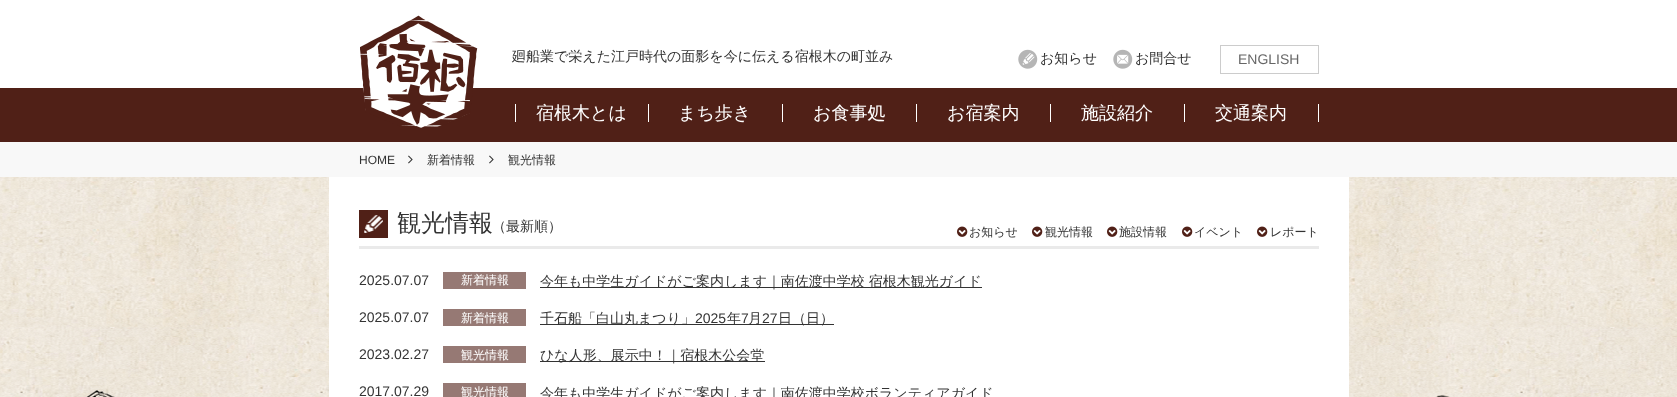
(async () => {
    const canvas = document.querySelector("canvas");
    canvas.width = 1677;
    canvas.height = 397;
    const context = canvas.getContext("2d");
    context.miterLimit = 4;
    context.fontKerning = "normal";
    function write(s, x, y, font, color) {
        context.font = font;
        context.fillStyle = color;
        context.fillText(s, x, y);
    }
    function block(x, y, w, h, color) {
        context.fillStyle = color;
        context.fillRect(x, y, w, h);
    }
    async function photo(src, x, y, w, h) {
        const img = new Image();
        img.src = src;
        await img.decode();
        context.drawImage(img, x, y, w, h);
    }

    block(0, 0, 1677, 397, "rgb(255, 255, 255)");
    block(0, 88, 1677, 54, "rgb(80, 32, 23)");
    await photo("media/1.png", 360, 15, 118, 113);
    write("廻船業で栄えた江戸時代の面影を今に伝える宿根木の町並み", 512, 61, "500 14px WenQuanYi Zen Hei", "rgb(51, 51, 51)");
    await photo("media/2.png", 1018, 49, 20, 20);
    write("お知らせ", 1040, 63, "500 14px WenQuanYi Zen Hei", "rgb(51, 51, 51)");
    await photo("media/3.png", 1113, 49, 20, 20);
    write("お問合せ", 1135, 63, "500 14px WenQuanYi Zen Hei", "rgb(51, 51, 51)");
    context.strokeStyle = "rgb(204, 204, 204)";
    context.strokeRect(1220.5, 45.5, 98, 28);
    write("ENGLISH", 1238, 64, "14px Liberation Sans", "rgb(102, 102, 102)");
    block(648, 104, 1, 18, "rgb(255, 255, 255)");
    block(515, 104, 1, 18, "rgb(255, 255, 255)");
    write("宿根木とは", 536, 119, "500 18px WenQuanYi Zen Hei", "rgb(255, 255, 255)");
    block(782, 104, 1, 18, "rgb(255, 255, 255)");
    write("まち歩き", 678, 119, "500 18px WenQuanYi Zen Hei", "rgb(255, 255, 255)");
    block(916, 104, 1, 18, "rgb(255, 255, 255)");
    write("お食事処", 813, 119, "500 18px WenQuanYi Zen Hei", "rgb(255, 255, 255)");
    block(1050, 104, 1, 18, "rgb(255, 255, 255)");
    write("お宿案内", 947, 119, "500 18px WenQuanYi Zen Hei", "rgb(255, 255, 255)");
    block(1184, 104, 1, 18, "rgb(255, 255, 255)");
    write("施設紹介", 1081, 119, "500 18px WenQuanYi Zen Hei", "rgb(255, 255, 255)");
    block(1318, 104, 1, 18, "rgb(255, 255, 255)");
    write("交通案内", 1215, 119, "500 18px WenQuanYi Zen Hei", "rgb(255, 255, 255)");
    block(0, 142, 1677, 35, "rgb(248, 248, 248)");
    write("HOME", 359, 164, "12px Liberation Sans", "rgb(51, 51, 51)");
    await photo("media/4.png", 408, 155, 5, 9);
    write("新着情報", 427, 164, "500 12px WenQuanYi Zen Hei", "rgb(51, 51, 51)");
    await photo("media/4.png", 489, 155, 5, 9);
    write("観光情報", 508, 164, "500 12px WenQuanYi Zen Hei", "rgb(51, 51, 51)");
    await photo("media/5.png", 0, 177, 1677, 220);
    await photo("media/8.png", 86, 389, 1364, 8);
    block(329, 177, 1020, 220, "rgb(255, 255, 255)");
    block(359, 246, 960, 3, "rgb(234, 234, 234)");
    await photo("media/6.png", 359, 210, 29, 28);
    write("観光情報", 397, 231, "500 24px WenQuanYi Zen Hei", "rgb(51, 51, 51)");
    write("（最新順）", 492, 231, "500 14px WenQuanYi Zen Hei", "rgb(51, 51, 51)");
    await photo("media/7.png", 957, 226, 11, 11);
    write("お知らせ", 969, 236, "500 12px WenQuanYi Zen Hei", "rgb(51, 51, 51)");
    await photo("media/7.png", 1032, 226, 11, 11);
    write("観光情報", 1045, 236, "500 12px WenQuanYi Zen Hei", "rgb(51, 51, 51)");
    await photo("media/7.png", 1107, 226, 11, 11);
    write("施設情報", 1119, 236, "500 12px WenQuanYi Zen Hei", "rgb(51, 51, 51)");
    await photo("media/7.png", 1182, 226, 11, 11);
    write("イベント", 1194, 236, "500 12px WenQuanYi Zen Hei", "rgb(51, 51, 51)");
    await photo("media/7.png", 1257, 226, 11, 11);
    write("レポート", 1270, 236, "500 12px WenQuanYi Zen Hei", "rgb(51, 51, 51)");
    write("2025.07.07", 359, 285, "14px Liberation Sans", "rgb(51, 51, 51)");
    block(443, 272, 83, 17, "rgb(150, 121, 116)");
    write("新着情報", 461, 284, "500 12px WenQuanYi Zen Hei", "rgb(255, 255, 255)");
    block(540, 287, 442, 1, "rgb(51, 51, 51)");
    write("今年も中学生ガイドがご案内します｜南佐渡中学校 宿根木観光ガイド", 540, 286, "500 14px WenQuanYi Zen Hei", "rgb(51, 51, 51)");
    write("2025.07.07", 359, 322, "14px Liberation Sans", "rgb(51, 51, 51)");
    block(443, 309, 83, 17, "rgb(150, 121, 116)");
    write("新着情報", 461, 322, "500 12px WenQuanYi Zen Hei", "rgb(255, 255, 255)");
    block(540, 324, 294, 1, "rgb(51, 51, 51)");
    write("千石船「白山丸まつり」", 540, 323, "500 14px WenQuanYi Zen Hei", "rgb(51, 51, 51)");
    write("2025", 695, 323, "14px Liberation Sans", "rgb(51, 51, 51)");
    write("年", 727, 323, "500 14px WenQuanYi Zen Hei", "rgb(51, 51, 51)");
    write("7", 741, 323, "14px Liberation Sans", "rgb(51, 51, 51)");
    write("月", 748, 323, "500 14px WenQuanYi Zen Hei", "rgb(51, 51, 51)");
    write("27", 762, 323, "14px Liberation Sans", "rgb(51, 51, 51)");
    write("日（日）", 778, 323, "500 14px WenQuanYi Zen Hei", "rgb(51, 51, 51)");
    write("2023.02.27", 359, 359, "14px Liberation Sans", "rgb(51, 51, 51)");
    block(443, 346, 83, 17, "rgb(150, 121, 116)");
    write("観光情報", 461, 359, "500 12px WenQuanYi Zen Hei", "rgb(255, 255, 255)");
    block(540, 361, 225, 1, "rgb(51, 51, 51)");
    write("ひな人形、展示中！｜宿根木公会堂", 540, 360, "500 14px WenQuanYi Zen Hei", "rgb(51, 51, 51)");
    write("2017.07.29", 359, 396, "14px Liberation Sans", "rgb(51, 51, 51)");
    block(443, 383, 83, 14, "rgb(150, 121, 116)");
    write("観光情報", 461, 396, "500 12px WenQuanYi Zen Hei", "rgb(255, 255, 255)");
    write("今年も中学生ガイドがご案内します｜南佐渡中学校ボランティアガイド", 540, 398, "500 14px WenQuanYi Zen Hei", "rgb(51, 51, 51)");
})();
